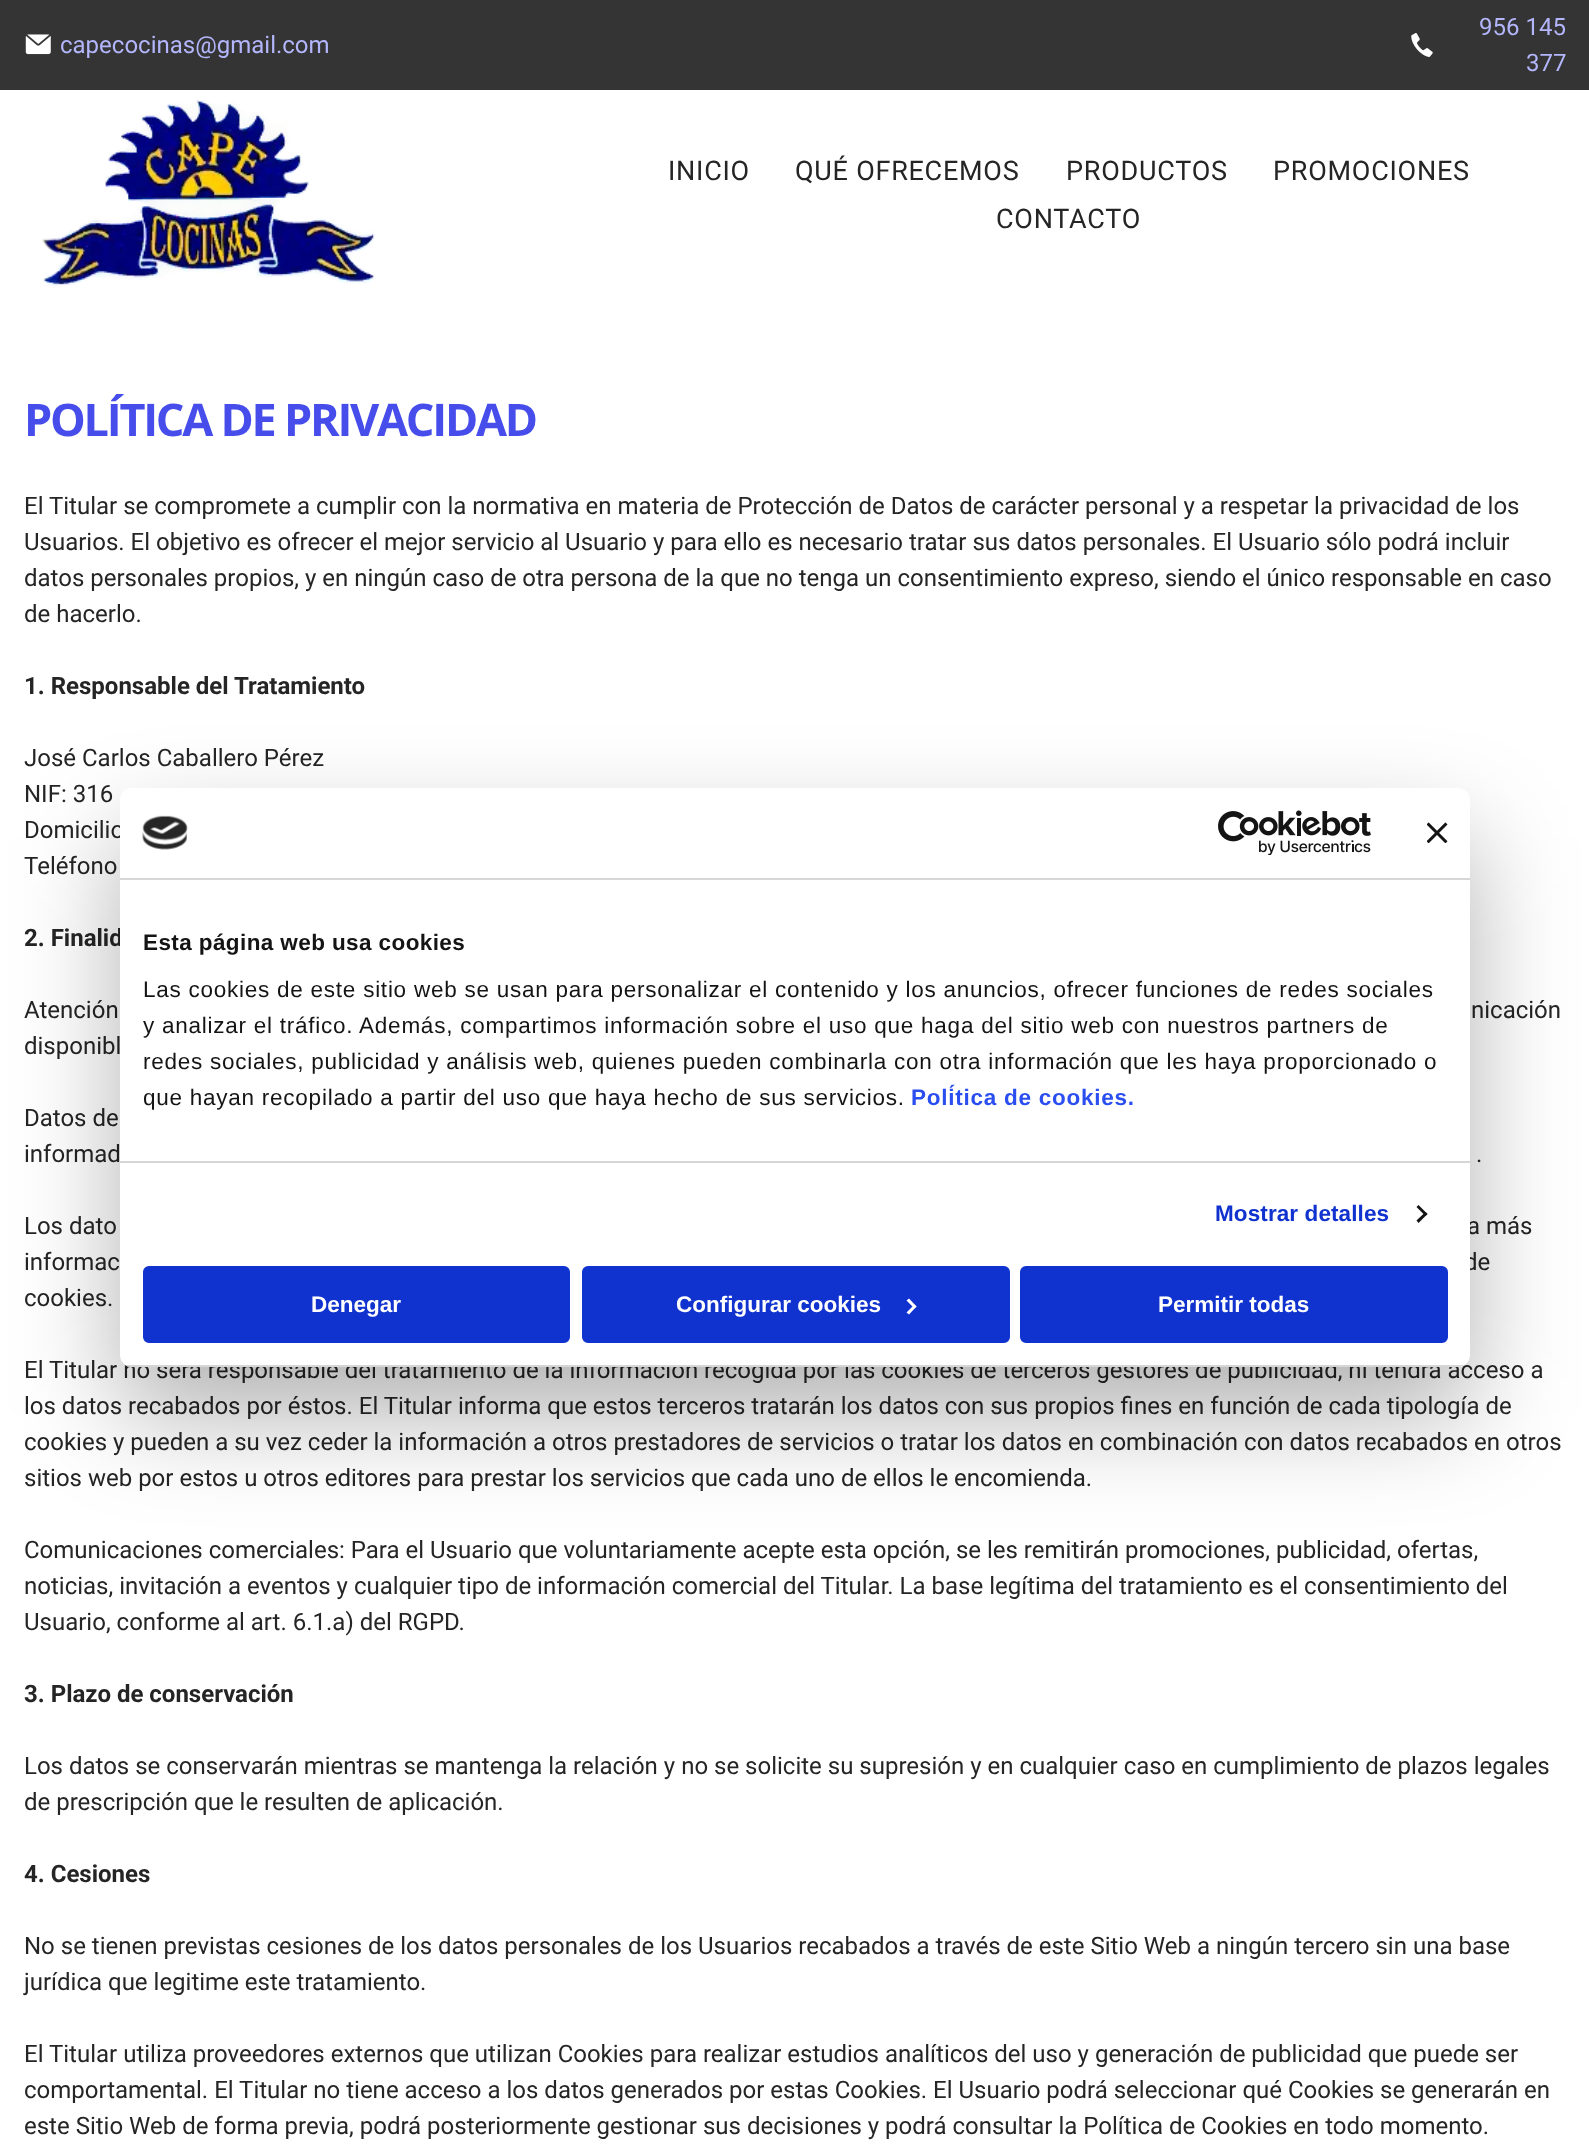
(async () => {
    const canvas = document.querySelector("canvas");
    canvas.width = 1589;
    canvas.height = 2154;
    const context = canvas.getContext("2d");
    context.miterLimit = 4;
    context.fontKerning = "normal";
    function write(s, x, y, font, color) {
        context.font = font;
        context.fillStyle = color;
        context.fillText(s, x, y);
    }
    function block(x, y, w, h, color) {
        context.fillStyle = color;
        context.fillRect(x, y, w, h);
    }
    function card(x, y, w, h, r, color) {
        context.fillStyle = color;
        context.beginPath();
        context.roundRect(x, y, w, h, r);
        context.fill();
    }
    async function photo(src, x, y, w, h) {
        const img = new Image();
        img.src = src;
        await img.decode();
        context.drawImage(img, x, y, w, h);
    }

    block(0, 0, 1589, 2154, "rgb(255, 255, 255)");
    block(0, 0, 1589, 90, "rgb(52, 52, 52)");
    await photo("media/1.png", 25, 34, 26, 21);
    write("capecocinas@gmail.com", 60, 53, "24px Roboto", "rgb(179, 182, 251)");
    await photo("media/2.png", 1411, 33, 22, 24);
    write("956 145", 1479, 35, "24px Roboto", "rgb(179, 182, 251)");
    write("377", 1526, 71, "24px Roboto", "rgb(179, 182, 251)");
    await photo("media/3.png", 42, 100, 334, 188);
    context.letterSpacing = "0.75px";
    write("INICIO", 668, 180, "27px Roboto", "rgb(37, 37, 37)");
    write("QUÉ OFRECEMOS", 795, 180, "27px Roboto", "rgb(37, 37, 37)");
    write("PRODUCTOS", 1066, 180, "27px Roboto", "rgb(37, 37, 37)");
    write("PROMOCIONES", 1273, 180, "27px Roboto", "rgb(37, 37, 37)");
    write("CONTACTO", 996, 228, "27px Roboto", "rgb(37, 37, 37)");
    context.letterSpacing = "-2.25px";
    write("POLÍTICA DE PRIVACIDAD", 24, 436, "bold 45px Open Sans", "rgb(70, 77, 235)");
    context.letterSpacing = "0px";
    write("El Titular se compromete a cumplir con la normativa en materia de Protección de Datos de carácter personal y a respetar la privacidad de los", 24, 514, "24px Roboto", "rgb(37, 37, 37)");
    write("Usuarios. El objetivo es ofrecer el mejor servicio al Usuario y para ello es necesario tratar sus datos personales. El Usuario sólo podrá incluir", 24, 550, "24px Roboto", "rgb(37, 37, 37)");
    write("datos personales propios, y en ningún caso de otra persona de la que no tenga un consentimiento expreso, siendo el único responsable en caso", 24, 586, "24px Roboto", "rgb(37, 37, 37)");
    write("de hacerlo.", 24, 622, "24px Roboto", "rgb(37, 37, 37)");
    write("1. Responsable del Tratamiento", 24, 694, "bold 24px Roboto", "rgb(37, 37, 37)");
    write("José Carlos Caballero Pérez", 24, 766, "24px Roboto", "rgb(37, 37, 37)");
    write("NIF: 316", 24, 802, "24px Roboto", "rgb(37, 37, 37)");
    write("Domicilio", 24, 838, "24px Roboto", "rgb(37, 37, 37)");
    write("Teléfono", 24, 874, "24px Roboto", "rgb(37, 37, 37)");
    write("2. Finalid", 24, 946, "bold 24px Roboto", "rgb(37, 37, 37)");
    write("Atención", 24, 1018, "24px Roboto", "rgb(37, 37, 37)");
    write("nicación", 1471, 1018, "24px Roboto", "rgb(37, 37, 37)");
    write("disponibl", 24, 1054, "24px Roboto", "rgb(37, 37, 37)");
    write("Datos de", 24, 1126, "24px Roboto", "rgb(37, 37, 37)");
    write("informad", 24, 1162, "24px Roboto", "rgb(37, 37, 37)");
    write(".", 1476, 1162, "24px Roboto", "rgb(37, 37, 37)");
    write("Los dato", 24, 1234, "24px Roboto", "rgb(37, 37, 37)");
    write("a más", 1467, 1234, "24px Roboto", "rgb(37, 37, 37)");
    write("informac", 24, 1270, "24px Roboto", "rgb(37, 37, 37)");
    write("de", 1464, 1270, "24px Roboto", "rgb(37, 37, 37)");
    write("cookies.", 24, 1306, "24px Roboto", "rgb(37, 37, 37)");
    write("El Titular no será responsable del tratamiento de la información recogida por las cookies de terceros gestores de publicidad, ni tendrá acceso a", 24, 1378, "24px Roboto", "rgb(37, 37, 37)");
    write("los datos recabados por éstos. El Titular informa que estos terceros tratarán los datos con sus propios fines en función de cada tipología de", 24, 1414, "24px Roboto", "rgb(37, 37, 37)");
    write("cookies y pueden a su vez ceder la información a otros prestadores de servicios o tratar los datos en combinación con datos recabados en otros", 24, 1450, "24px Roboto", "rgb(37, 37, 37)");
    write("sitios web por estos u otros editores para prestar los servicios que cada uno de ellos le encomienda.", 24, 1486, "24px Roboto", "rgb(37, 37, 37)");
    write("Comunicaciones comerciales: Para el Usuario que voluntariamente acepte esta opción, se les remitirán promociones, publicidad, ofertas,", 24, 1558, "24px Roboto", "rgb(37, 37, 37)");
    write("noticias, invitación a eventos y cualquier tipo de información comercial del Titular. La base legítima del tratamiento es el consentimiento del", 24, 1594, "24px Roboto", "rgb(37, 37, 37)");
    write("Usuario, conforme al art. 6.1.a) del RGPD.", 24, 1630, "24px Roboto", "rgb(37, 37, 37)");
    write("3. Plazo de conservación", 24, 1702, "bold 24px Roboto", "rgb(37, 37, 37)");
    write("Los datos se conservarán mientras se mantenga la relación y no se solicite su supresión y en cualquier caso en cumplimiento de plazos legales", 24, 1774, "24px Roboto", "rgb(37, 37, 37)");
    write("de prescripción que le resulten de aplicación.", 24, 1810, "24px Roboto", "rgb(37, 37, 37)");
    write("4. Cesiones", 24, 1882, "bold 24px Roboto", "rgb(37, 37, 37)");
    write("No se tienen previstas cesiones de los datos personales de los Usuarios recabados a través de este Sitio Web a ningún tercero sin una base", 24, 1954, "24px Roboto", "rgb(37, 37, 37)");
    write("jurídica que legitime este tratamiento.", 24, 1990, "24px Roboto", "rgb(37, 37, 37)");
    write("El Titular utiliza proveedores externos que utilizan Cookies para realizar estudios analíticos del uso y generación de publicidad que puede ser", 24, 2062, "24px Roboto", "rgb(37, 37, 37)");
    write("comportamental. El Titular no tiene acceso a los datos generados por estas Cookies. El Usuario podrá seleccionar qué Cookies se generarán en", 24, 2098, "24px Roboto", "rgb(37, 37, 37)");
    write("este Sitio Web de forma previa, podrá posteriormente gestionar sus decisiones y podrá consultar la Política de Cookies en todo momento.", 24, 2134, "24px Roboto", "rgb(37, 37, 37)");
    context.fillStyle = "rgba(0, 0, 0, 0.3)";
    context.filter = "blur(51px)";
    context.beginPath();
    context.roundRect(120, 836, 1350, 579, 12);
    context.fill();
    context.filter = "none";
    card(120, 788, 1350, 579, 12, "rgb(255, 255, 255)");
    block(120, 878, 1350, 2, "rgb(214, 214, 214)");
    await photo("media/4.png", 142, 815, 46, 35);
    await photo("media/5.png", 1218, 810, 153, 45);
    await photo("media/6.png", 1427, 822, 21, 21);
    block(120, 1161, 1350, 2, "rgb(214, 214, 214)");
    context.letterSpacing = "0.4px";
    write("Esta página web usa cookies", 143, 950, "bold 22.5px Liberation Sans", "rgb(20, 20, 20)");
    context.letterSpacing = "0.75px";
    write("Las cookies de este sitio web se usan para personalizar el contenido y los anuncios, ofrecer funciones de redes sociales", 143, 997, "22.5px Liberation Sans", "rgb(20, 20, 20)");
    write("y analizar el tráfico. Además, compartimos información sobre el uso que haga del sitio web con nuestros partners de", 143, 1033, "22.5px Liberation Sans", "rgb(20, 20, 20)");
    write("redes sociales, publicidad y análisis web, quienes pueden combinarla con otra información que les haya proporcionado o", 143, 1069, "22.5px Liberation Sans", "rgb(20, 20, 20)");
    write("que hayan recopilado a partir del uso que haya hecho de sus servicios.", 143, 1105, "22.5px Liberation Sans", "rgb(20, 20, 20)");
    write("Política de cookies.", 911, 1105, "bold 22.5px Liberation Sans", "rgb(42, 78, 239)");
    context.letterSpacing = "0.1px";
    write("Mostrar detalles", 1215, 1221, "bold 22.5px Liberation Sans", "rgb(16, 50, 207)");
    context.fillStyle = "rgb(20, 20, 20)";
    context.beginPath();
    context.moveTo(1418.5, 1205);
    context.lineTo(1427.5, 1214);
    context.lineTo(1425.5, 1216);
    context.lineTo(1416.5, 1207);
    context.closePath();
    context.fill();
    context.beginPath();
    context.moveTo(1425.5, 1212);
    context.lineTo(1427.5, 1214);
    context.lineTo(1418.5, 1223);
    context.lineTo(1416.5, 1220.5);
    context.closePath();
    context.fill();
    context.save();
    context.beginPath();
    context.roundRect(120, 788, 1350, 579, 12);
    context.clip();
    block(120, 1365, 1350, 2, "rgb(214, 214, 214)");
    context.restore();
    context.fillStyle = "rgb(16, 50, 207)";
    context.beginPath();
    context.roundRect(144.5, 1267.5, 424, 74, 4.5);
    context.fill();
    context.strokeStyle = "rgb(16, 50, 207)";
    context.lineWidth = 3;
    context.stroke();
    context.letterSpacing = "0px";
    write("Denegar", 311, 1312, "bold 22.5px Liberation Sans", "rgb(255, 255, 255)");
    context.fillStyle = "rgb(16, 50, 207)";
    context.beginPath();
    context.roundRect(583.5, 1267.5, 425, 74, 4.5);
    context.fill();
    context.stroke();
    write("Configurar cookies", 676, 1312, "bold 22.5px Liberation Sans", "rgb(255, 255, 255)");
    context.beginPath();
    context.moveTo(909, 1298.5);
    context.lineTo(916.5, 1306.5);
    context.lineTo(914.5, 1308.5);
    context.lineTo(906.5, 1300.5);
    context.closePath();
    context.fill();
    context.beginPath();
    context.moveTo(914.5, 1304.5);
    context.lineTo(916.5, 1306.5);
    context.lineTo(909, 1314.5);
    context.lineTo(906.5, 1312.5);
    context.closePath();
    context.fill();
    context.fillStyle = "rgb(16, 50, 207)";
    context.beginPath();
    context.roundRect(1021.5, 1267.5, 425, 74, 4.5);
    context.fill();
    context.stroke();
    write("Permitir todas", 1158, 1312, "bold 22.5px Liberation Sans", "rgb(255, 255, 255)");
})();
